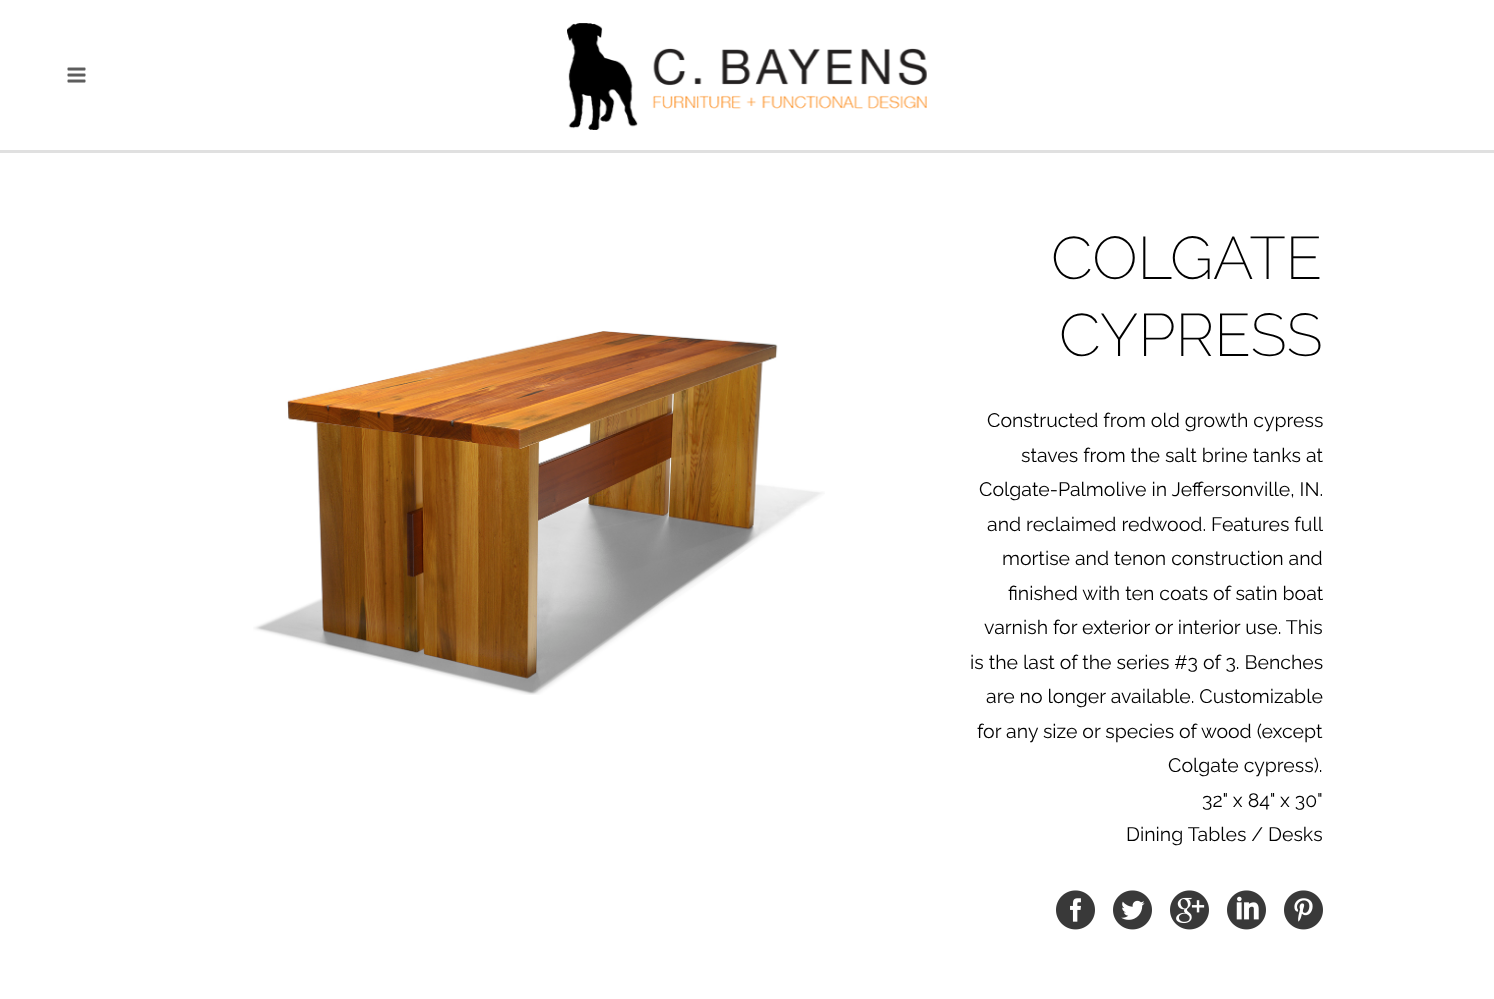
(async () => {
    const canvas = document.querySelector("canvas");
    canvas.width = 1494;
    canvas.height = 999;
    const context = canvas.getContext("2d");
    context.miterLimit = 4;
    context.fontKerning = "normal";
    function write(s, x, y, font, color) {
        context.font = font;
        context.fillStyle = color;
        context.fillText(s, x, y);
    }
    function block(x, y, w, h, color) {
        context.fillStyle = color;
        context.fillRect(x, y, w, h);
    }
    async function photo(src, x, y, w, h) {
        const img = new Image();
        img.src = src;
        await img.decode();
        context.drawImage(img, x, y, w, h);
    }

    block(0, 0, 1494, 999, "rgb(255, 255, 255)");
    block(0, 150, 1494, 3, "rgb(224, 224, 224)");
    await photo("media/1.png", 67, 67, 19, 16);
    await photo("media/2.png", 567, 23, 360, 107);
    await photo("media/3.png", 253, 331, 572, 364);
    write("COLGATE", 1051, 279, "200 60px Raleway", "rgb(0, 0, 0)");
    write("CYPRESS", 1059, 356, "200 60px Raleway", "rgb(0, 0, 0)");
    write("Constructed from old growth cypress", 987, 427, "19.5px Raleway", "rgb(0, 0, 0)");
    write("staves from the salt brine tanks at", 1021, 462, "19.5px Raleway", "rgb(0, 0, 0)");
    write("Colgate-Palmolive in Jeffersonville, IN.", 979, 496, "19.5px Raleway", "rgb(0, 0, 0)");
    write("and reclaimed redwood. Features full", 987, 531, "19.5px Raleway", "rgb(0, 0, 0)");
    write("mortise and tenon construction and", 1002, 565, "19.5px Raleway", "rgb(0, 0, 0)");
    write("finished with ten coats of satin boat", 1008, 600, "19.5px Raleway", "rgb(0, 0, 0)");
    write("varnish for exterior or interior use. This", 984, 634, "19.5px Raleway", "rgb(0, 0, 0)");
    write("is the last of the series #3 of 3. Benches", 970, 669, "19.5px Raleway", "rgb(0, 0, 0)");
    write("are no longer available. Customizable", 986, 703, "19.5px Raleway", "rgb(0, 0, 0)");
    write("for any size or species of wood (except", 977, 738, "19.5px Raleway", "rgb(0, 0, 0)");
    write("Colgate cypress).", 1168, 772, "19.5px Raleway", "rgb(0, 0, 0)");
    write("32\" x 84\" x 30\"", 1202, 807, "19.5px Raleway", "rgb(0, 0, 0)");
    write("Dining Tables / Desks", 1126, 841, "19.5px Raleway", "rgb(0, 0, 0)");
    await photo("media/4.png", 1056, 890, 39, 40);
    await photo("media/5.png", 1113, 890, 39, 40);
    await photo("media/6.png", 1170, 890, 39, 40);
    await photo("media/7.png", 1227, 890, 39, 40);
    await photo("media/8.png", 1284, 890, 39, 40);
})();
